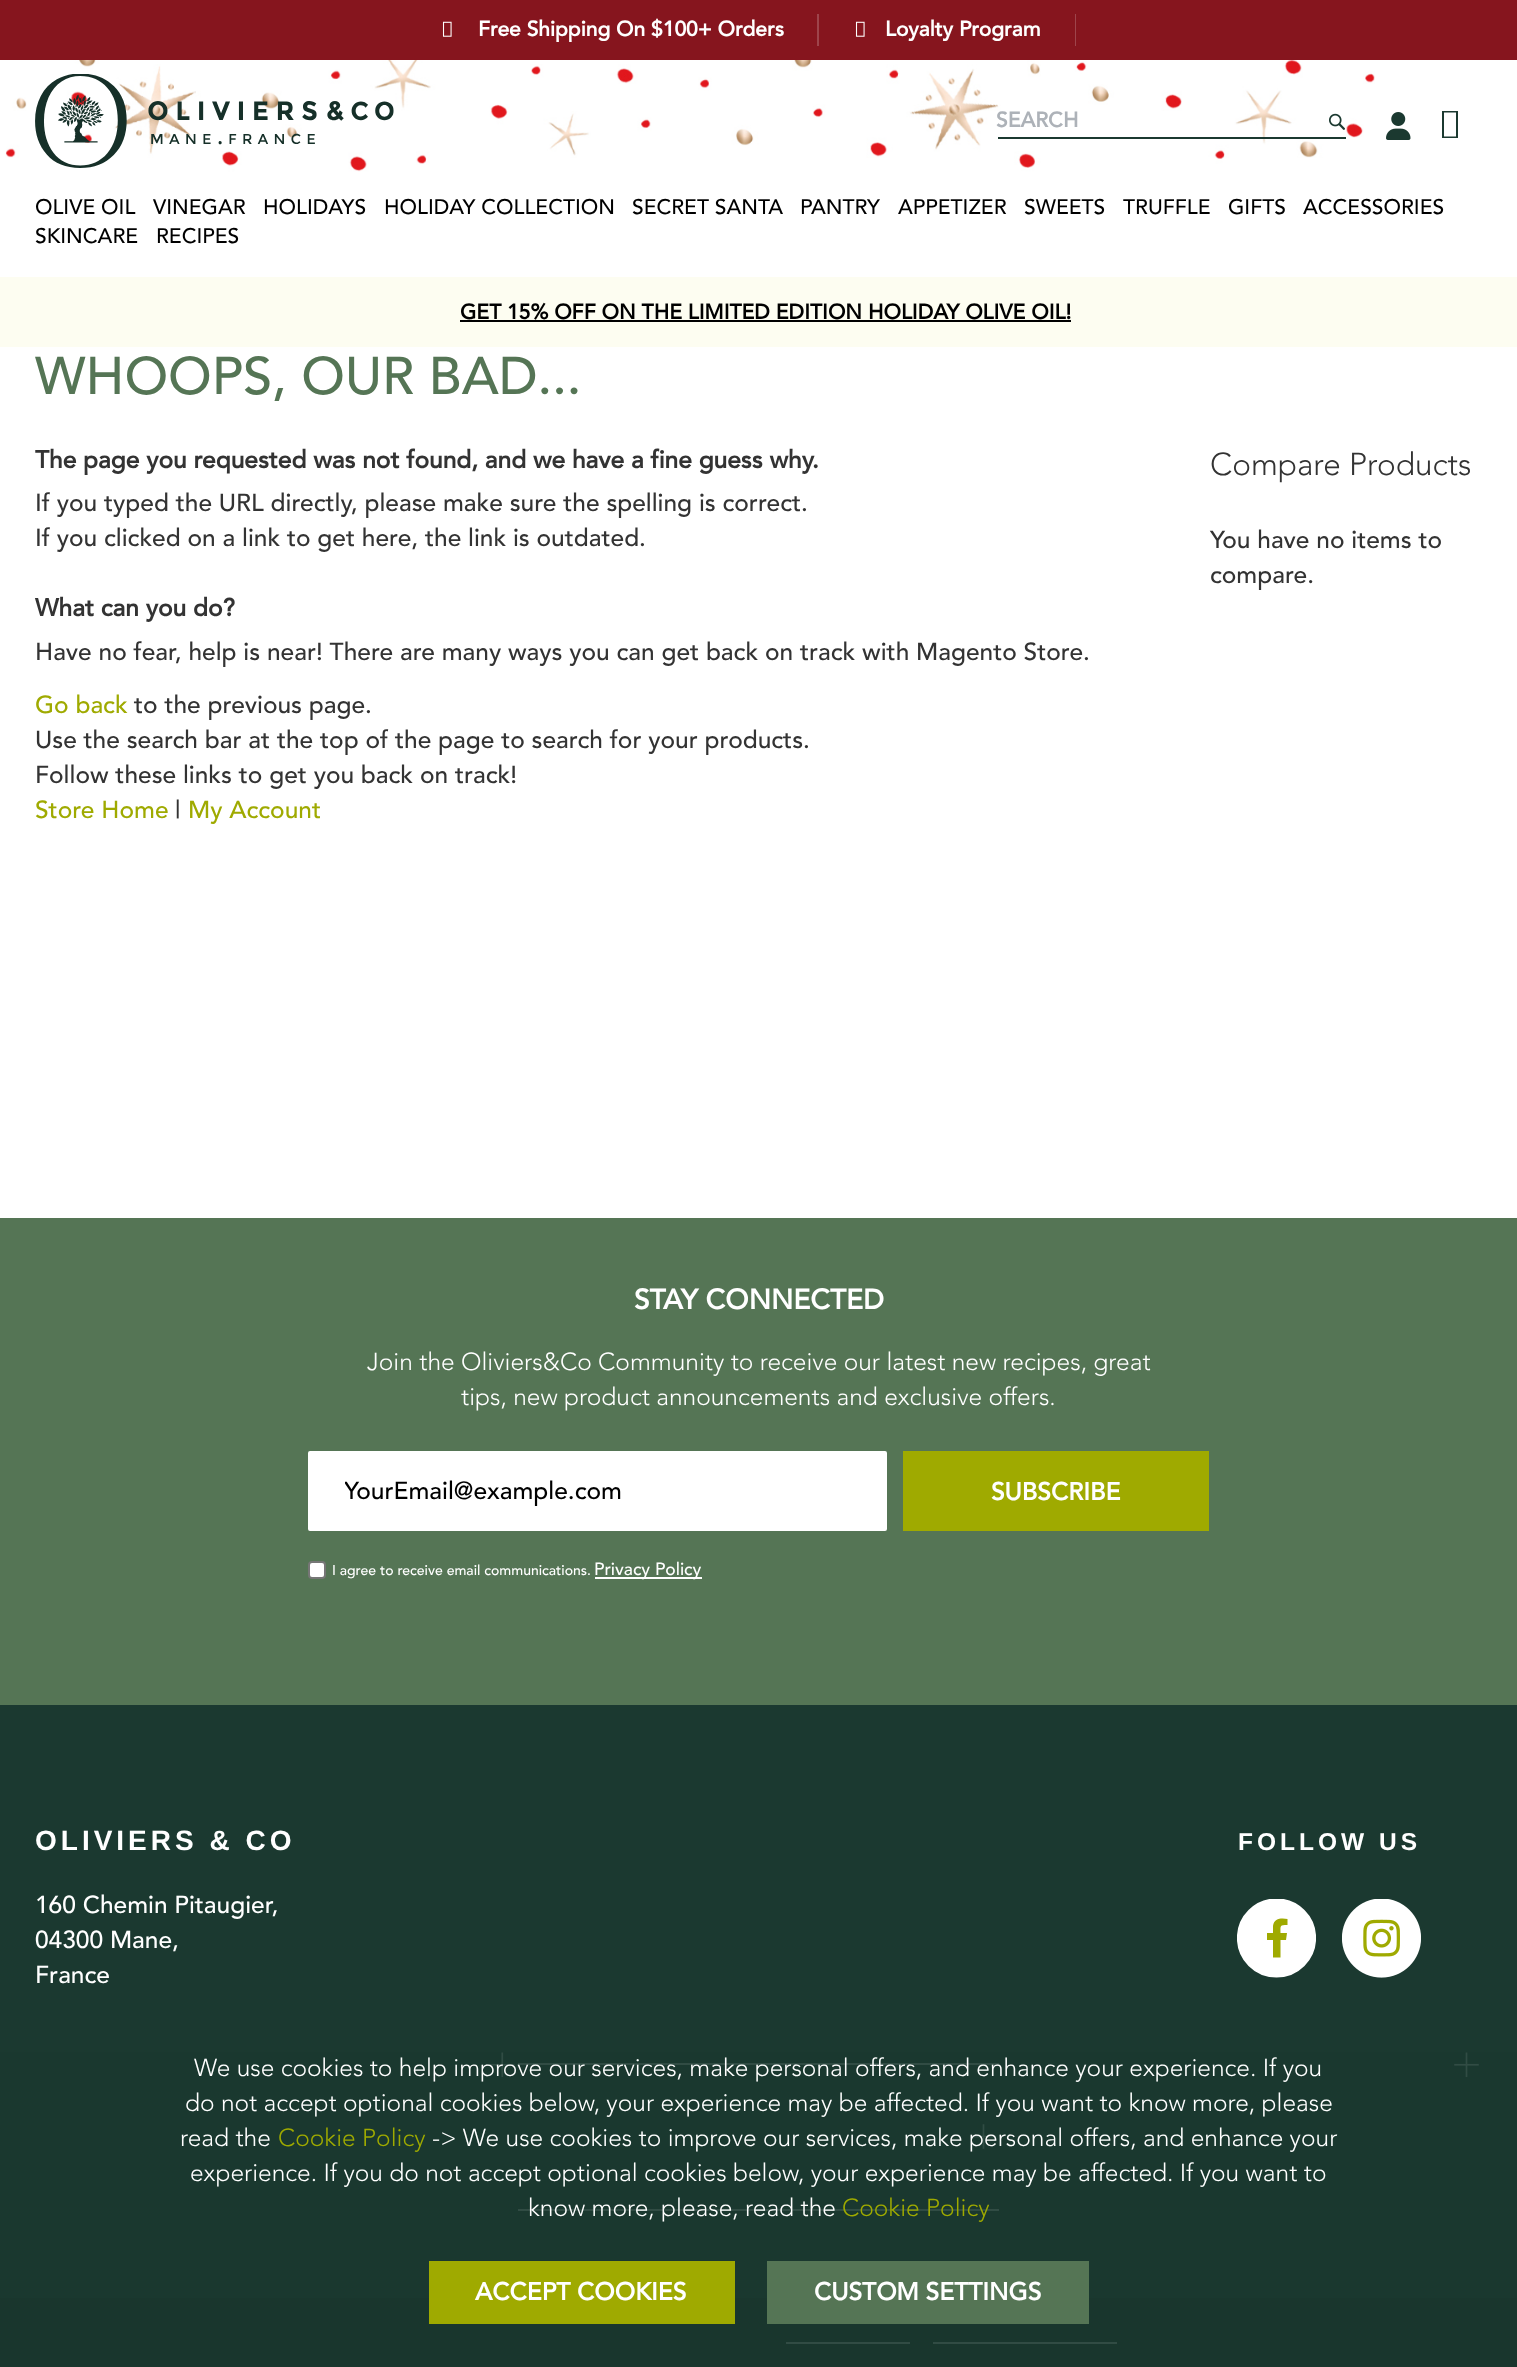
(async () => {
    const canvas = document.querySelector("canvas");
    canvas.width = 1517;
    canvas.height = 2367;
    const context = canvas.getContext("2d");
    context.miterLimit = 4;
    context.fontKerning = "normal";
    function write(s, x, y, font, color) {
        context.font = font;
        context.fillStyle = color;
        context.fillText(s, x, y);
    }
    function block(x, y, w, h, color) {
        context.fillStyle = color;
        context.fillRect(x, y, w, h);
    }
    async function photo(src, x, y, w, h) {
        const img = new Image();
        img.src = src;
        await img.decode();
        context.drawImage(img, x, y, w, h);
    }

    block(0, 0, 1517, 2367, "rgb(255, 255, 255)");
    block(0, 0, 1517, 60, "rgb(134, 21, 30)");
    await photo("media/1.png", 442, 21, 10, 16);
    write("Free Shipping On $100+ Orders", 478, 36, "bold 21px Avenir", "rgb(255, 255, 255)");
    block(817, 14, 2, 32, "rgb(158, 68, 75)");
    await photo("media/1.png", 855, 21, 10, 16);
    write("Loyalty Program", 885, 36, "bold 21px Avenir", "rgb(255, 255, 255)");
    block(1075, 14, 1, 32, "rgb(158, 68, 75)");
    await photo("media/2.png", 5, 60, 1370, 112);
    await photo("media/3.png", 35, 74, 359, 94);
    block(998, 137, 348, 2, "rgb(27, 57, 48)");
    write("SEARCH", 996, 127, "bold 21px Avenir", "rgb(173, 178, 184)");
    await photo("media/4.png", 1329, 113, 16, 17);
    await photo("media/5.png", 1386, 112, 25, 28);
    context.fillStyle = "rgb(27, 57, 48)";
    context.beginPath();
    context.moveTo(1442, 138);
    context.lineTo(1442, 111);
    context.lineTo(1458, 111);
    context.lineTo(1458, 138);
    context.closePath();
    context.moveTo(1444, 136.5);
    context.lineTo(1456, 136.5);
    context.lineTo(1456, 112.5);
    context.lineTo(1444, 112.5);
    context.closePath();
    context.fill();
    write("OLIVE OIL", 35, 214, "500 21px Avenir", "rgb(0, 0, 0)");
    write("VINEGAR", 153, 214, "500 21px Avenir", "rgb(0, 0, 0)");
    write("HOLIDAYS", 263, 214, "500 21px Avenir", "rgb(0, 0, 0)");
    write("HOLIDAY COLLECTION", 384, 214, "500 21px Avenir", "rgb(0, 0, 0)");
    write("SECRET SANTA", 632, 214, "500 21px Avenir", "rgb(0, 0, 0)");
    write("PANTRY", 800, 214, "500 21px Avenir", "rgb(0, 0, 0)");
    write("APPETIZER", 898, 214, "500 21px Avenir", "rgb(0, 0, 0)");
    write("SWEETS", 1024, 214, "500 21px Avenir", "rgb(0, 0, 0)");
    write("TRUFFLE", 1123, 214, "500 21px Avenir", "rgb(0, 0, 0)");
    write("GIFTS", 1228, 214, "500 21px Avenir", "rgb(0, 0, 0)");
    write("ACCESSORIES", 1303, 214, "500 21px Avenir", "rgb(0, 0, 0)");
    write("SKINCARE", 35, 243, "500 21px Avenir", "rgb(0, 0, 0)");
    write("RECIPES", 156, 243, "500 21px Avenir", "rgb(0, 0, 0)");
    block(0, 277, 1517, 70, "rgb(253, 253, 241)");
    write("GET 15% OFF ON THE LIMITED EDITION HOLIDAY OLIVE OIL!", 460, 319, "bold 21px Avenir", "rgb(0, 0, 0)");
    block(460, 320, 611, 2, "rgb(0, 0, 0)");
    write("WHOOPS, OUR BAD...", 35, 394, "500 52.5px Avenir", "rgb(85, 117, 85)");
    write("The page you requested was not found, and we have a fine guess why.", 35, 468, "bold 24.5px Avenir", "rgb(51, 51, 51)");
    write("If you typed the URL directly, please make sure the spelling is correct.", 35, 511, "500 24.5px Avenir", "rgb(51, 51, 51)");
    write("If you clicked on a link to get here, the link is outdated.", 35, 546, "500 24.5px Avenir", "rgb(51, 51, 51)");
    write("What can you do?", 35, 616, "bold 24.5px Avenir", "rgb(51, 51, 51)");
    write("Have no fear, help is near! There are many ways you can get back on track with Magento Store.", 35, 660, "500 24.5px Avenir", "rgb(51, 51, 51)");
    write("Go back", 35, 713, "500 24.5px Avenir", "rgb(159, 170, 0)");
    write("to the previous page.", 134, 713, "500 24.5px Avenir", "rgb(51, 51, 51)");
    write("Use the search bar at the top of the page to search for your products.", 35, 748, "500 24.5px Avenir", "rgb(51, 51, 51)");
    write("Follow these links to get you back on track!", 35, 783, "500 24.5px Avenir", "rgb(51, 51, 51)");
    write("Store Home", 35, 818, "500 24.5px Avenir", "rgb(159, 170, 0)");
    write("|", 175, 818, "500 24.5px Avenir", "rgb(51, 51, 51)");
    write("My Account", 188, 818, "500 24.5px Avenir", "rgb(159, 170, 0)");
    write("Compare Products", 1210, 475, "300 31.5px Avenir", "rgb(51, 51, 51)");
    write("You have no items to", 1210, 548, "500 24.5px Avenir", "rgb(51, 51, 51)");
    write("compare.", 1210, 583, "500 24.5px Avenir", "rgb(51, 51, 51)");
    block(0, 1218, 1517, 487, "rgb(85, 117, 85)");
    write("STAY CONNECTED", 634, 1309, "bold 28px Avenir", "rgb(255, 255, 255)");
    write("Join the Oliviers&Co Community to receive our latest new recipes, great", 367, 1370, "300 24.5px Avenir", "rgb(255, 255, 255)");
    write("tips, new product announcements and exclusive offers.", 461, 1405, "300 24.5px Avenir", "rgb(255, 255, 255)");
    context.beginPath();
    context.roundRect(309, 1452, 577, 78, 1);
    context.fill();
    context.strokeStyle = "rgb(255, 255, 255)";
    context.lineWidth = 2;
    context.stroke();
    context.save();
    context.beginPath();
    context.rect(345, 1475, 541, 34);
    context.clip();
    write("YourEmail@example.com", 344, 1499, "500 24.5px Avenir", "rgb(0, 0, 0)");
    context.restore();
    block(903, 1451, 306, 80, "rgb(159, 170, 0)");
    write("SUBSCRIBE", 991, 1500, "bold 24.5px Avenir", "rgb(255, 255, 255)");
    context.beginPath();
    context.roundRect(309, 1562, 16, 16, 3);
    context.fill();
    context.strokeStyle = "rgb(118, 118, 118)";
    context.stroke();
    write("I agree to receive email communications.", 332, 1575, "500 14px Avenir", "rgb(255, 255, 255)");
    block(595, 1577, 107, 2, "rgb(255, 255, 255)");
    write("Privacy Policy", 594, 1575, "500 17.5px Avenir", "rgb(255, 255, 255)");
    block(0, 1705, 1517, 593, "rgb(27, 57, 48)");
    context.letterSpacing = "4px";
    write("OLIVIERS & CO", 35, 1850, "bold 28px Liberation Sans", "rgb(255, 255, 255)");
    context.letterSpacing = "0px";
    write("160 Chemin Pitaugier,", 35, 1913, "500 24.5px Avenir", "rgb(255, 255, 255)");
    write("04300 Mane,", 35, 1948, "500 24.5px Avenir", "rgb(255, 255, 255)");
    write("France", 35, 1983, "500 24.5px Avenir", "rgb(255, 255, 255)");
    context.letterSpacing = "4px";
    write("FOLLOW US", 1238, 1850, "bold 24.5px Liberation Sans", "rgb(255, 255, 255)");
    context.beginPath();
    context.arc(1276.5, 1938, 37, 0, Math.PI * 2);
    context.fill();
    context.save();
    context.beginPath();
    context.rect(1237, 1899, 79, 79);
    context.clip();
    context.beginPath();
    context.arc(1276.5, 1938, 37, 0, Math.PI * 2);
    context.strokeStyle = "rgb(255, 255, 255)";
    context.lineWidth = 5.2;
    context.stroke();
    context.restore();
    context.fillStyle = "rgb(159, 170, 0)";
    context.beginPath();
    context.moveTo(1273, 1957.5);
    context.lineTo(1273, 1940);
    context.lineTo(1267, 1940);
    context.lineTo(1267, 1933);
    context.lineTo(1273, 1933);
    context.lineTo(1273, 1926);
    context.bezierCurveTo(1274, 1918, 1281.5, 1918, 1287.5, 1919);
    context.lineTo(1287.5, 1925);
    context.bezierCurveTo(1279.5, 1925, 1280.5, 1925.5, 1280.5, 1933);
    context.lineTo(1287, 1933);
    context.lineTo(1286, 1940);
    context.lineTo(1280.5, 1940);
    context.lineTo(1280.5, 1957.5);
    context.closePath();
    context.fill();
    await photo("media/6.png", 1342, 1899, 79, 79);
    await photo("media/7.png", 490, 2052, 25, 26);
    block(518, 2063, 481, 2, "rgb(255, 255, 255)");
    block(518, 2209, 481, 2, "rgb(255, 255, 255)");
    await photo("media/8.png", 971, 2124, 25, 25);
    await photo("media/9.png", 1454, 2052, 25, 26);
    block(0, 2298, 1517, 69, "rgb(11, 37, 28)");
    block(786, 2342, 124, 2, "rgb(255, 255, 255)");
    block(933, 2342, 184, 2, "rgb(255, 255, 255)");
    block(0, 2052, 1517, 315, "rgba(27, 57, 48, 0.9)");
    context.letterSpacing = "0px";
    write("We use cookies to help improve our services, make personal offers, and enhance your experience. If you", 194, 2076, "300 24.5px Avenir", "rgb(255, 255, 255)");
    write("do not accept optional cookies below, your experience may be affected. If you want to know more, please", 185, 2111, "300 24.5px Avenir", "rgb(255, 255, 255)");
    write("read the", 180, 2146, "300 24.5px Avenir", "rgb(255, 255, 255)");
    write("Cookie Policy", 278, 2146, "300 24.5px Avenir", "rgb(159, 170, 0)");
    write("-> We use cookies to improve our services, make personal offers, and enhance your", 432, 2146, "300 24.5px Avenir", "rgb(255, 255, 255)");
    write("experience. If you do not accept optional cookies below, your experience may be affected. If you want to", 190, 2181, "300 24.5px Avenir", "rgb(255, 255, 255)");
    write("know more, please, read the", 528, 2216, "300 24.5px Avenir", "rgb(255, 255, 255)");
    write("Cookie Policy", 842, 2216, "300 24.5px Avenir", "rgb(159, 170, 0)");
    block(429, 2261, 306, 63, "rgb(159, 170, 0)");
    write("ACCEPT COOKIES", 475, 2300, "bold 24.5px Avenir", "rgb(255, 255, 255)");
    block(767, 2261, 322, 63, "rgb(85, 117, 85)");
    write("CUSTOM SETTINGS", 814, 2300, "bold 24.5px Avenir", "rgb(255, 255, 255)");
})();
